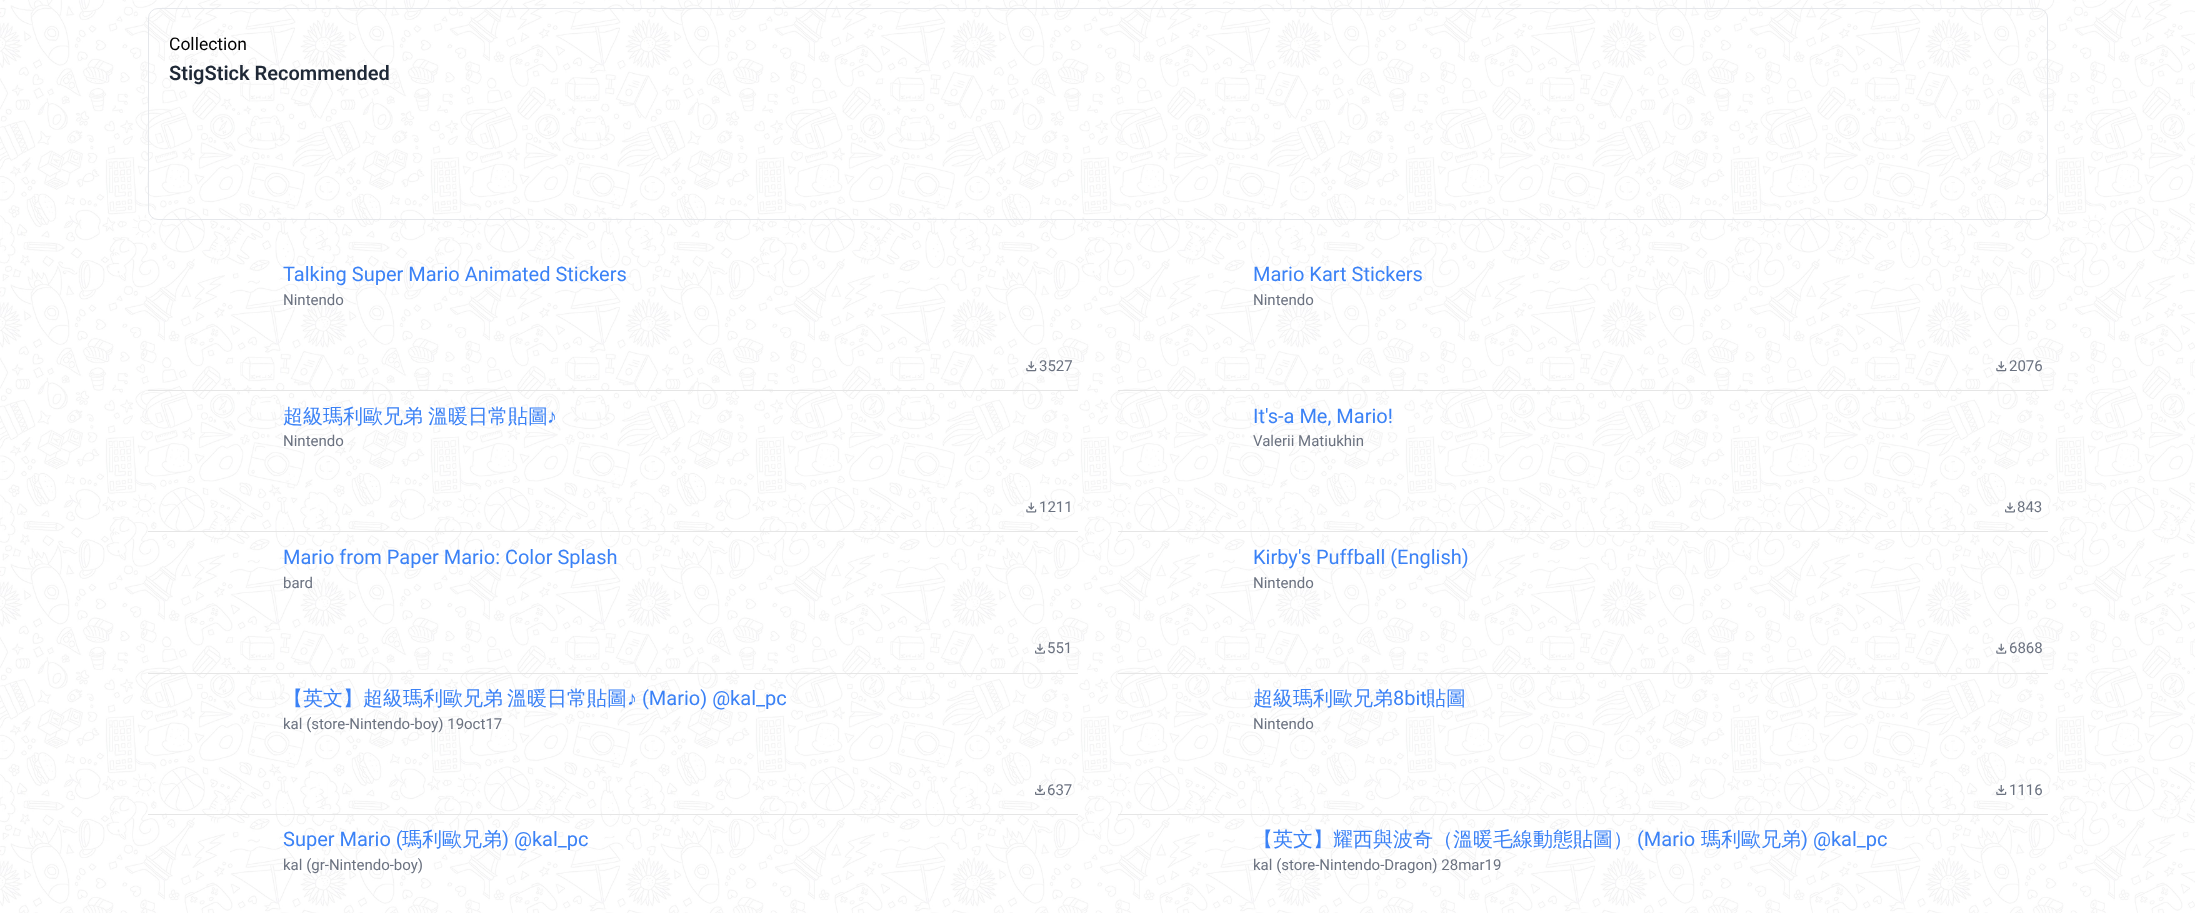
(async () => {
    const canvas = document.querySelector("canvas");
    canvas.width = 2195;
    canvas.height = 913;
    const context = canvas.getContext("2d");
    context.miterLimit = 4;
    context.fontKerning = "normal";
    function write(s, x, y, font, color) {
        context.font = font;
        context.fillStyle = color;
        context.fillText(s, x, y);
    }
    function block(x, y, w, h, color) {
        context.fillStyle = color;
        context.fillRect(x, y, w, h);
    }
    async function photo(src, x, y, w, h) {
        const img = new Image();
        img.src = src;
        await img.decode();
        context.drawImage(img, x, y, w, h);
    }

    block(0, 0, 2195, 913, "rgb(255, 255, 255)");
    await photo("media/1.png", 0, 0, 2195, 913);
    context.beginPath();
    context.roundRect(148.5, 8.5, 1899, 211, 9.5);
    context.strokeStyle = "rgb(229, 231, 235)";
    context.stroke();
    write("Collection", 169, 50, "17.5px Roboto", "rgb(0, 0, 0)");
    write("StigStick Recommended", 169, 80, "600 20px Roboto", "rgb(31, 41, 55)");
    block(148, 390, 930, 1, "rgb(230, 230, 230)");
    write("Talking Super Mario Animated Stickers", 283, 281, "20px Roboto", "rgb(59, 130, 246)");
    write("Nintendo", 283, 305, "15px Roboto", "rgb(107, 114, 128)");
    await photo("media/2.png", 1026, 361, 11, 11);
    write("3527", 1039, 371, "15px Roboto", "rgb(107, 114, 128)");
    block(1118, 390, 930, 1, "rgb(230, 230, 230)");
    write("Mario Kart Stickers", 1253, 281, "20px Roboto", "rgb(59, 130, 246)");
    write("Nintendo", 1253, 305, "15px Roboto", "rgb(107, 114, 128)");
    await photo("media/3.png", 1996, 361, 11, 11);
    write("2076", 2009, 371, "15px Roboto", "rgb(107, 114, 128)");
    block(148, 531, 930, 1, "rgb(230, 230, 230)");
    context.wordSpacing = "-1px";
    write("超級瑪利歐兄弟 溫暖日常貼圖", 283, 423, "500 20px WenQuanYi Zen Hei", "rgb(59, 130, 246)");
    context.wordSpacing = "0px";
    write("♪", 547, 423, "20px Liberation Sans", "rgb(59, 130, 246)");
    write("Nintendo", 283, 446, "15px Roboto", "rgb(107, 114, 128)");
    await photo("media/4.png", 1026, 502, 11, 11);
    write("1211", 1039, 512, "15px Roboto", "rgb(107, 114, 128)");
    block(1118, 531, 930, 1, "rgb(230, 230, 230)");
    write("It's-a Me, Mario!", 1253, 423, "20px Roboto", "rgb(59, 130, 246)");
    write("Valerii Matiukhin", 1253, 446, "15px Roboto", "rgb(107, 114, 128)");
    await photo("media/5.png", 2005, 502, 10, 11);
    write("843", 2017, 512, "15px Roboto", "rgb(107, 114, 128)");
    block(148, 673, 930, 1, "rgb(230, 230, 230)");
    write("Mario from Paper Mario: Color Splash", 283, 564, "20px Roboto", "rgb(59, 130, 246)");
    write("bard", 283, 588, "15px Roboto", "rgb(107, 114, 128)");
    await photo("media/6.png", 1035, 643, 10, 11);
    write("551", 1047, 653, "15px Roboto", "rgb(107, 114, 128)");
    block(1118, 673, 930, 1, "rgb(230, 230, 230)");
    write("Kirby's Puffball (English)", 1253, 564, "20px Roboto", "rgb(59, 130, 246)");
    write("Nintendo", 1253, 588, "15px Roboto", "rgb(107, 114, 128)");
    await photo("media/7.png", 1996, 643, 11, 11);
    write("6868", 2009, 653, "15px Roboto", "rgb(107, 114, 128)");
    block(148, 814, 930, 1, "rgb(230, 230, 230)");
    write("【英文】超級瑪利歐兄弟", 283, 705, "500 20px WenQuanYi Zen Hei", "rgb(59, 130, 246)");
    write("溫暖日常貼圖", 507, 705, "500 20px WenQuanYi Zen Hei", "rgb(59, 130, 246)");
    write("♪", 627, 705, "20px Liberation Sans", "rgb(59, 130, 246)");
    write("(Mario) @kal_pc", 642, 705, "20px Roboto", "rgb(59, 130, 246)");
    write("kal (store-Nintendo-boy) 19oct17", 283, 729, "15px Roboto", "rgb(107, 114, 128)");
    await photo("media/8.png", 1035, 785, 10, 10);
    write("637", 1047, 795, "15px Roboto", "rgb(107, 114, 128)");
    block(1118, 814, 930, 1, "rgb(230, 230, 230)");
    write("超級瑪利歐兄弟", 1253, 705, "500 20px WenQuanYi Zen Hei", "rgb(59, 130, 246)");
    write("8bit", 1393, 705, "20px Roboto", "rgb(59, 130, 246)");
    write("貼圖", 1426, 705, "500 20px WenQuanYi Zen Hei", "rgb(59, 130, 246)");
    write("Nintendo", 1253, 729, "15px Roboto", "rgb(107, 114, 128)");
    await photo("media/9.png", 1996, 785, 11, 10);
    write("1116", 2009, 795, "15px Roboto", "rgb(107, 114, 128)");
    write("Super Mario (", 283, 846, "20px Roboto", "rgb(59, 130, 246)");
    write("瑪利歐兄弟", 402, 846, "500 20px WenQuanYi Zen Hei", "rgb(59, 130, 246)");
    write(") @kal_pc", 502, 846, "20px Roboto", "rgb(59, 130, 246)");
    write("kal (gr-Nintendo-boy)", 283, 870, "15px Roboto", "rgb(107, 114, 128)");
    write("【英文】耀西與波奇（溫暖毛線動態貼圖）", 1253, 846, "500 20px WenQuanYi Zen Hei", "rgb(59, 130, 246)");
    write("(Mario", 1637, 846, "20px Roboto", "rgb(59, 130, 246)");
    write("瑪利歐兄弟", 1701, 846, "500 20px WenQuanYi Zen Hei", "rgb(59, 130, 246)");
    write(") @kal_pc", 1801, 846, "20px Roboto", "rgb(59, 130, 246)");
    write("kal (store-Nintendo-Dragon) 28mar19", 1253, 870, "15px Roboto", "rgb(107, 114, 128)");
})();
